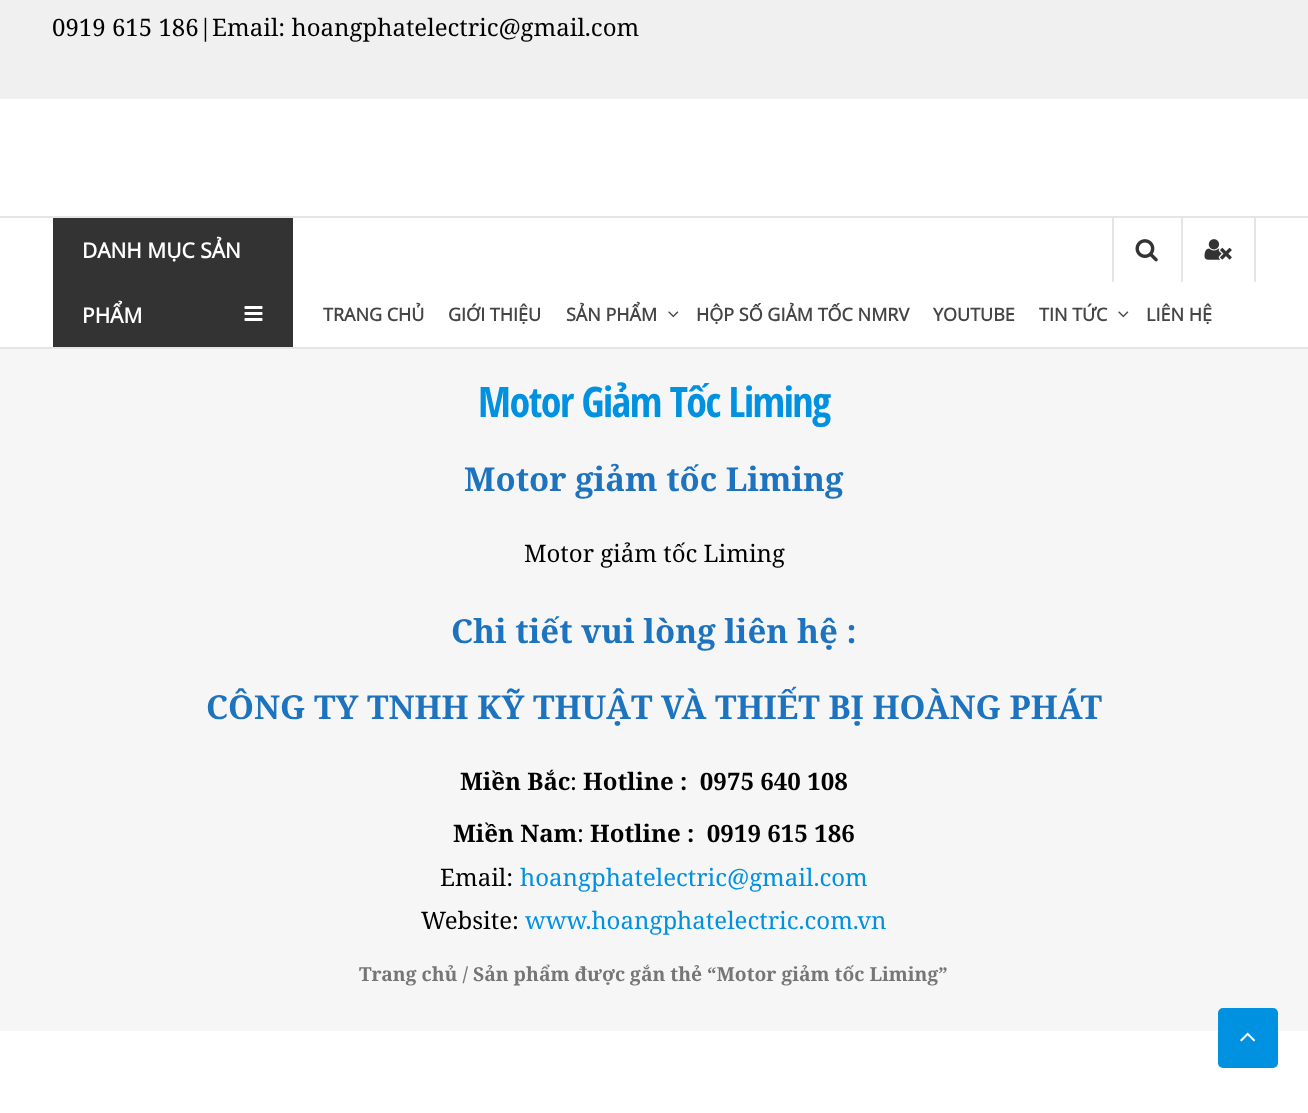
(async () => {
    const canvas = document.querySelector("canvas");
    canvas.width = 1308;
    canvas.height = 1113;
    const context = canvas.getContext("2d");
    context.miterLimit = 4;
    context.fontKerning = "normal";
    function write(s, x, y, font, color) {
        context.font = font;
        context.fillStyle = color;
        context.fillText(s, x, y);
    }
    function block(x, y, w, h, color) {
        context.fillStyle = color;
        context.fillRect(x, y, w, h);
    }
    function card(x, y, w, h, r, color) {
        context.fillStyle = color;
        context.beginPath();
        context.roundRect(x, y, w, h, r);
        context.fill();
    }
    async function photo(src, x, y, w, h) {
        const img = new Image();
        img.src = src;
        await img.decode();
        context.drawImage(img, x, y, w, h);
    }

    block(0, 0, 1308, 1113, "rgb(255, 255, 255)");
    block(0, 0, 1308, 99, "rgb(240, 240, 240)");
    write("0919 615 186|Email: hoangphatelectric@gmail.com", 52, 36, "24px Noto Serif", "rgb(0, 0, 0)");
    block(0, 216, 1308, 2, "rgb(229, 229, 229)");
    block(0, 347, 1308, 2, "rgb(229, 229, 229)");
    block(53, 218, 240, 129, "rgb(51, 51, 51)");
    write("DANH MỤC SẢN", 82, 258, "bold 21px Open Sans", "rgb(255, 255, 255)");
    write("PHẨM", 82, 323, "bold 21px Open Sans", "rgb(255, 255, 255)");
    await photo("media/1.png", 244, 306, 19, 15);
    block(1112, 218, 2, 64, "rgb(229, 229, 229)");
    await photo("media/2.png", 1135, 239, 23, 23);
    block(1254, 218, 2, 64, "rgb(229, 229, 229)");
    block(1181, 218, 2, 64, "rgb(229, 229, 229)");
    await photo("media/3.png", 1204, 239, 28, 21);
    write("TRANG CHỦ", 323, 321, "bold 18px Open Sans", "rgb(69, 69, 69)");
    write("GIỚI THIỆU", 448, 321, "bold 18px Open Sans", "rgb(69, 69, 69)");
    write("SẢN PHẨM", 566, 321, "bold 18px Open Sans", "rgb(69, 69, 69)");
    await photo("media/4.png", 668, 311, 11, 7);
    write("HỘP SỐ GIẢM TỐC NMRV", 696, 321, "bold 18px Open Sans", "rgb(69, 69, 69)");
    write("YOUTUBE", 933, 321, "bold 18px Open Sans", "rgb(69, 69, 69)");
    write("TIN TỨC", 1039, 321, "bold 18px Open Sans", "rgb(69, 69, 69)");
    await photo("media/4.png", 1118, 311, 11, 7);
    write("LIÊN HỆ", 1146, 321, "bold 18px Open Sans", "rgb(69, 69, 69)");
    block(0, 349, 1308, 682, "rgb(246, 246, 246)");
    context.letterSpacing = "-1.5px";
    write("Motor Giảm Tốc Liming", 478, 417, "bold 42px Open Sans Condensed", "rgb(0, 145, 224)");
    context.letterSpacing = "0px";
    write("Motor giảm tốc Liming", 464, 491, "bold 33px Noto Serif", "rgb(30, 115, 190)");
    write("Motor giảm tốc Liming", 524, 562, "24px Noto Serif", "rgb(0, 0, 0)");
    write("Chi tiết vui lòng liên hệ :", 451, 643, "bold 33px Noto Serif", "rgb(30, 115, 190)");
    write("CÔNG TY TNHH KỸ THUẬT VÀ THIẾT BỊ HOÀNG PHÁT", 206, 719, "bold 33px Noto Serif", "rgb(30, 115, 190)");
    write("Miền Bắc", 460, 790, "bold 24px Noto Serif", "rgb(0, 0, 0)");
    write(":", 570, 790, "24px Noto Serif", "rgb(0, 0, 0)");
    write("Hotline :  0975 640 108", 583, 790, "bold 24px Noto Serif", "rgb(0, 0, 0)");
    write("Miền Nam", 453, 842, "bold 24px Noto Serif", "rgb(0, 0, 0)");
    write(":", 577, 842, "24px Noto Serif", "rgb(0, 0, 0)");
    write("Hotline :  0919 615 186", 590, 842, "bold 24px Noto Serif", "rgb(0, 0, 0)");
    write("Email:", 440, 886, "24px Noto Serif", "rgb(0, 0, 0)");
    write("hoangphatelectric@gmail.com", 520, 886, "24px Noto Serif", "rgb(0, 145, 224)");
    write("Website:", 421, 929, "24px Noto Serif", "rgb(0, 0, 0)");
    write("www.hoangphatelectric.com.vn", 525, 929, "24px Noto Serif", "rgb(0, 145, 224)");
    write("Trang chủ / Sản phẩm được gắn thẻ “Motor giảm tốc Liming”", 359, 981, "bold 19.3px Noto Serif", "rgb(118, 118, 118)");
    card(1218, 1008, 60, 60, 5, "rgb(0, 145, 224)");
    await photo("media/5.png", 1240, 1032, 16, 10);
})();
